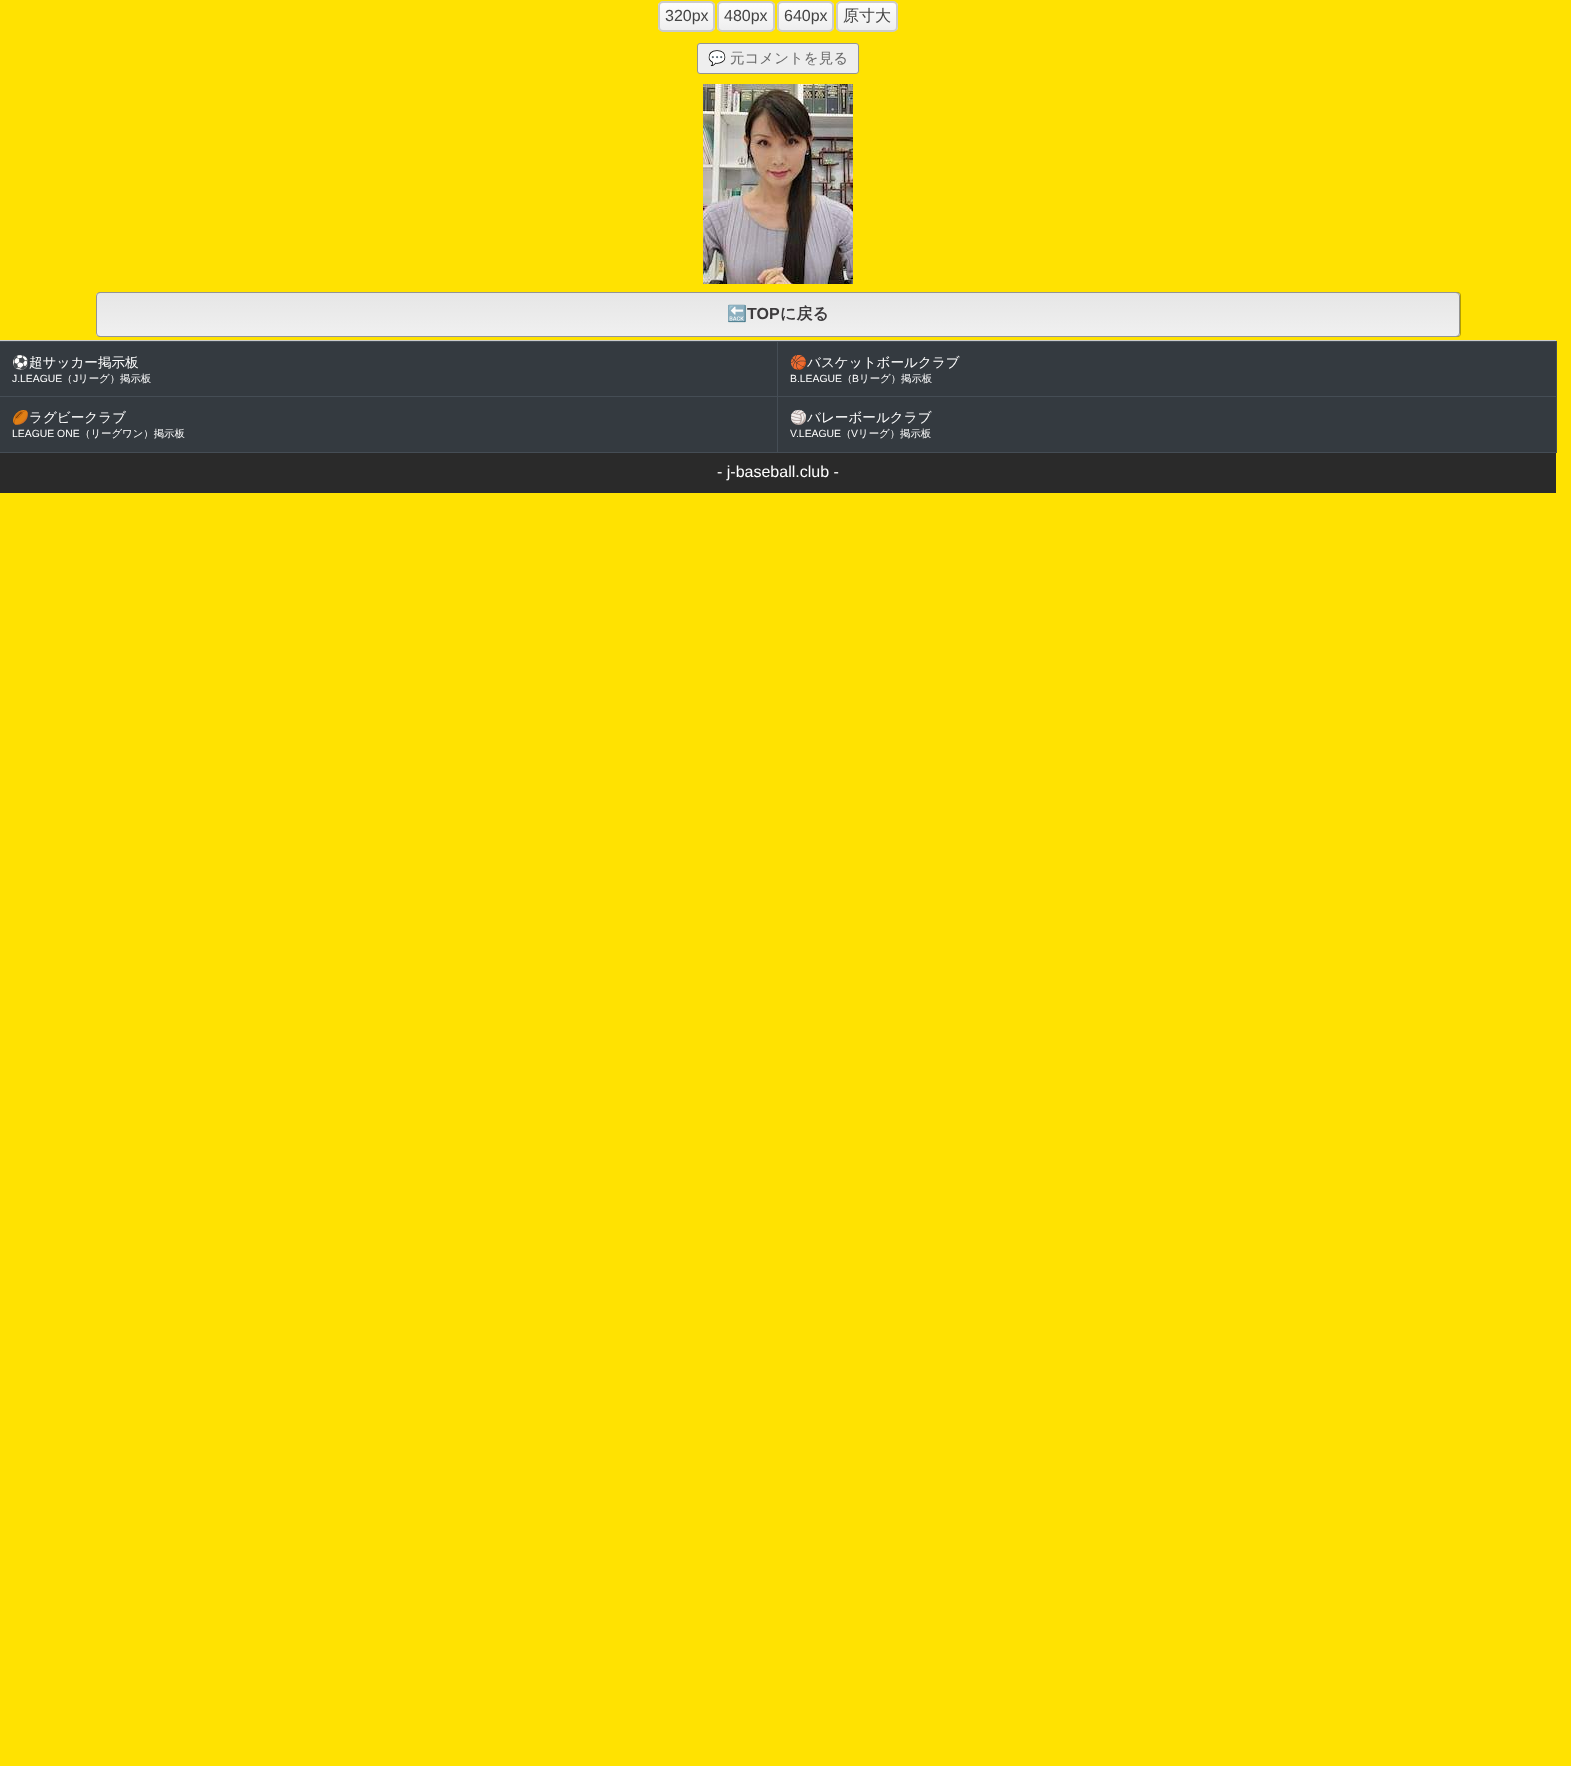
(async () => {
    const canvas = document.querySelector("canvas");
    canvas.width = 1571;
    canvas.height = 1766;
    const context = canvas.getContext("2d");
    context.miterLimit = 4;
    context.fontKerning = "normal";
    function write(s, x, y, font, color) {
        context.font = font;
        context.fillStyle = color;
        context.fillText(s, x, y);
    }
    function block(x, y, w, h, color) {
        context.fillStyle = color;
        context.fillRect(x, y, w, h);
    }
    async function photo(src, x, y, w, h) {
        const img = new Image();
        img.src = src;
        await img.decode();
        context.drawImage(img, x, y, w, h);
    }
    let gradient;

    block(0, 0, 1571, 1766, "rgb(255, 226, 1)");
    context.save();
    context.beginPath();
    context.roundRect(658, 1, 57, 31, 5);
    context.clip();
    gradient = context.createLinearGradient(660, 3, 660, 30);
    gradient.addColorStop(0, "rgb(253, 253, 253)");
    gradient.addColorStop(1, "rgb(238, 238, 238)");
    context.fillStyle = gradient;
    context.fillRect(658, 3, 57, 27);
    context.restore();
    context.beginPath();
    context.roundRect(659, 2, 55, 29, 4);
    context.strokeStyle = "rgb(204, 204, 204)";
    context.lineWidth = 2;
    context.stroke();
    write("320px", 665, 21, "16px Liberation Sans", "rgb(68, 68, 68)");
    context.save();
    context.beginPath();
    context.roundRect(717, 1, 58, 31, 5);
    context.clip();
    gradient = context.createLinearGradient(719, 3, 719, 30);
    gradient.addColorStop(0, "rgb(253, 253, 253)");
    gradient.addColorStop(1, "rgb(238, 238, 238)");
    context.fillStyle = gradient;
    context.fillRect(717, 3, 58, 27);
    context.restore();
    context.beginPath();
    context.roundRect(718, 2, 56, 29, 4);
    context.stroke();
    write("480px", 724, 21, "16px Liberation Sans", "rgb(68, 68, 68)");
    context.save();
    context.beginPath();
    context.roundRect(777, 1, 57, 31, 5);
    context.clip();
    gradient = context.createLinearGradient(779, 3, 779, 30);
    gradient.addColorStop(0, "rgb(253, 253, 253)");
    gradient.addColorStop(1, "rgb(238, 238, 238)");
    context.fillStyle = gradient;
    context.fillRect(777, 3, 57, 27);
    context.restore();
    context.beginPath();
    context.roundRect(778, 2, 55, 29, 4);
    context.stroke();
    write("640px", 784, 21, "16px Liberation Sans", "rgb(68, 68, 68)");
    context.save();
    context.beginPath();
    context.roundRect(836, 1, 62, 31, 5);
    context.clip();
    gradient = context.createLinearGradient(838, 3, 838, 30);
    gradient.addColorStop(0, "rgb(253, 253, 253)");
    gradient.addColorStop(1, "rgb(238, 238, 238)");
    context.fillStyle = gradient;
    context.fillRect(836, 3, 62, 27);
    context.restore();
    context.beginPath();
    context.roundRect(837, 2, 60, 29, 4);
    context.stroke();
    write("原寸大", 843, 21, "500 16px WenQuanYi Zen Hei", "rgb(68, 68, 68)");
    context.fillStyle = "rgb(238, 238, 238)";
    context.beginPath();
    context.roundRect(697.5, 43.5, 161, 30, 2.5);
    context.fill();
    context.strokeStyle = "rgb(148, 148, 148)";
    context.lineWidth = 1;
    context.stroke();
    write("💬", 708, 63, "14.5px Noto Color Emoji", "rgb(105, 105, 105)");
    write("元コメントを見る", 730, 63, "500 14.5px WenQuanYi Zen Hei", "rgb(105, 105, 105)");
    await photo("media/1.png", 703, 84, 150, 200);
    context.fillStyle = "rgba(0, 0, 0, 0.3)";
    context.filter = "blur(0.5px)";
    context.beginPath();
    context.roundRect(97, 292, 1364, 45, 4);
    context.fill();
    context.filter = "none";
    context.save();
    context.beginPath();
    context.roundRect(96, 292, 1364, 45, 4);
    context.clip();
    gradient = context.createLinearGradient(97, 293, 97, 336);
    gradient.addColorStop(0, "rgb(230, 230, 230)");
    gradient.addColorStop(1, "rgb(240, 240, 240)");
    context.fillStyle = gradient;
    context.fillRect(96, 293, 1364, 43);
    context.restore();
    context.beginPath();
    context.roundRect(96.5, 292.5, 1363, 44, 3.5);
    context.stroke();
    write("🔙", 727, 319, "bold 16px Noto Color Emoji", "rgb(61, 59, 61)");
    write("TOP", 747, 319, "bold 16px Liberation Sans", "rgb(61, 59, 61)");
    write("に戻る", 780, 319, "bold 16px WenQuanYi Zen Hei", "rgb(61, 59, 61)");
    block(0, 340, 1556, 1, "rgb(204, 204, 204)");
    context.strokeStyle = "rgb(69, 77, 85)";
    context.strokeRect(-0.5, 341.5, 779, 56);
    block(0, 342, 777, 54, "rgb(52, 58, 64)");
    write("⚽", 12, 367, "13.6px Noto Color Emoji", "rgb(255, 255, 255)");
    write("超サッカー掲示板", 29, 367, "500 13.6px WenQuanYi Zen Hei", "rgb(255, 255, 255)");
    write("J.LEAGUE", 12, 382, "10.4px Liberation Sans", "rgb(255, 255, 255)");
    write("（", 62, 382, "500 10.4px WenQuanYi Zen Hei", "rgb(255, 255, 255)");
    write("J", 73, 382, "10.4px Liberation Sans", "rgb(255, 255, 255)");
    write("リーグ）掲示板", 78, 382, "500 10.4px WenQuanYi Zen Hei", "rgb(255, 255, 255)");
    context.strokeRect(777.5, 341.5, 779, 56);
    block(778, 342, 778, 54, "rgb(52, 58, 64)");
    write("🏀", 790, 367, "13.6px Noto Color Emoji", "rgb(255, 255, 255)");
    write("バスケットボールクラブ", 807, 367, "500 13.6px WenQuanYi Zen Hei", "rgb(255, 255, 255)");
    write("B.LEAGUE", 790, 382, "10.4px Liberation Sans", "rgb(255, 255, 255)");
    write("（", 842, 382, "500 10.4px WenQuanYi Zen Hei", "rgb(255, 255, 255)");
    write("B", 852, 382, "10.4px Liberation Sans", "rgb(255, 255, 255)");
    write("リーグ）掲示板", 859, 382, "500 10.4px WenQuanYi Zen Hei", "rgb(255, 255, 255)");
    context.strokeRect(-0.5, 396.5, 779, 56);
    block(0, 397, 777, 55, "rgb(52, 58, 64)");
    write("🏉", 12, 422, "13.6px Noto Color Emoji", "rgb(255, 255, 255)");
    write("ラグビークラブ", 29, 422, "500 13.6px WenQuanYi Zen Hei", "rgb(255, 255, 255)");
    write("LEAGUE ONE", 12, 437, "10.4px Liberation Sans", "rgb(255, 255, 255)");
    write("（リーグワン）掲示板", 80, 437, "500 10.4px WenQuanYi Zen Hei", "rgb(255, 255, 255)");
    context.strokeRect(777.5, 396.5, 779, 56);
    block(778, 397, 778, 55, "rgb(52, 58, 64)");
    write("🏐", 790, 422, "13.6px Noto Color Emoji", "rgb(255, 255, 255)");
    write("バレーボールクラブ", 807, 422, "500 13.6px WenQuanYi Zen Hei", "rgb(255, 255, 255)");
    write("V.LEAGUE", 790, 437, "10.4px Liberation Sans", "rgb(255, 255, 255)");
    write("（", 841, 437, "500 10.4px WenQuanYi Zen Hei", "rgb(255, 255, 255)");
    write("V", 851, 437, "10.4px Liberation Sans", "rgb(255, 255, 255)");
    write("リーグ）掲示板", 858, 437, "500 10.4px WenQuanYi Zen Hei", "rgb(255, 255, 255)");
    block(0, 453, 1556, 40, "rgb(42, 42, 42)");
    write("- j-baseball.club -", 717, 477, "16px Liberation Sans", "rgb(255, 255, 255)");
})();
